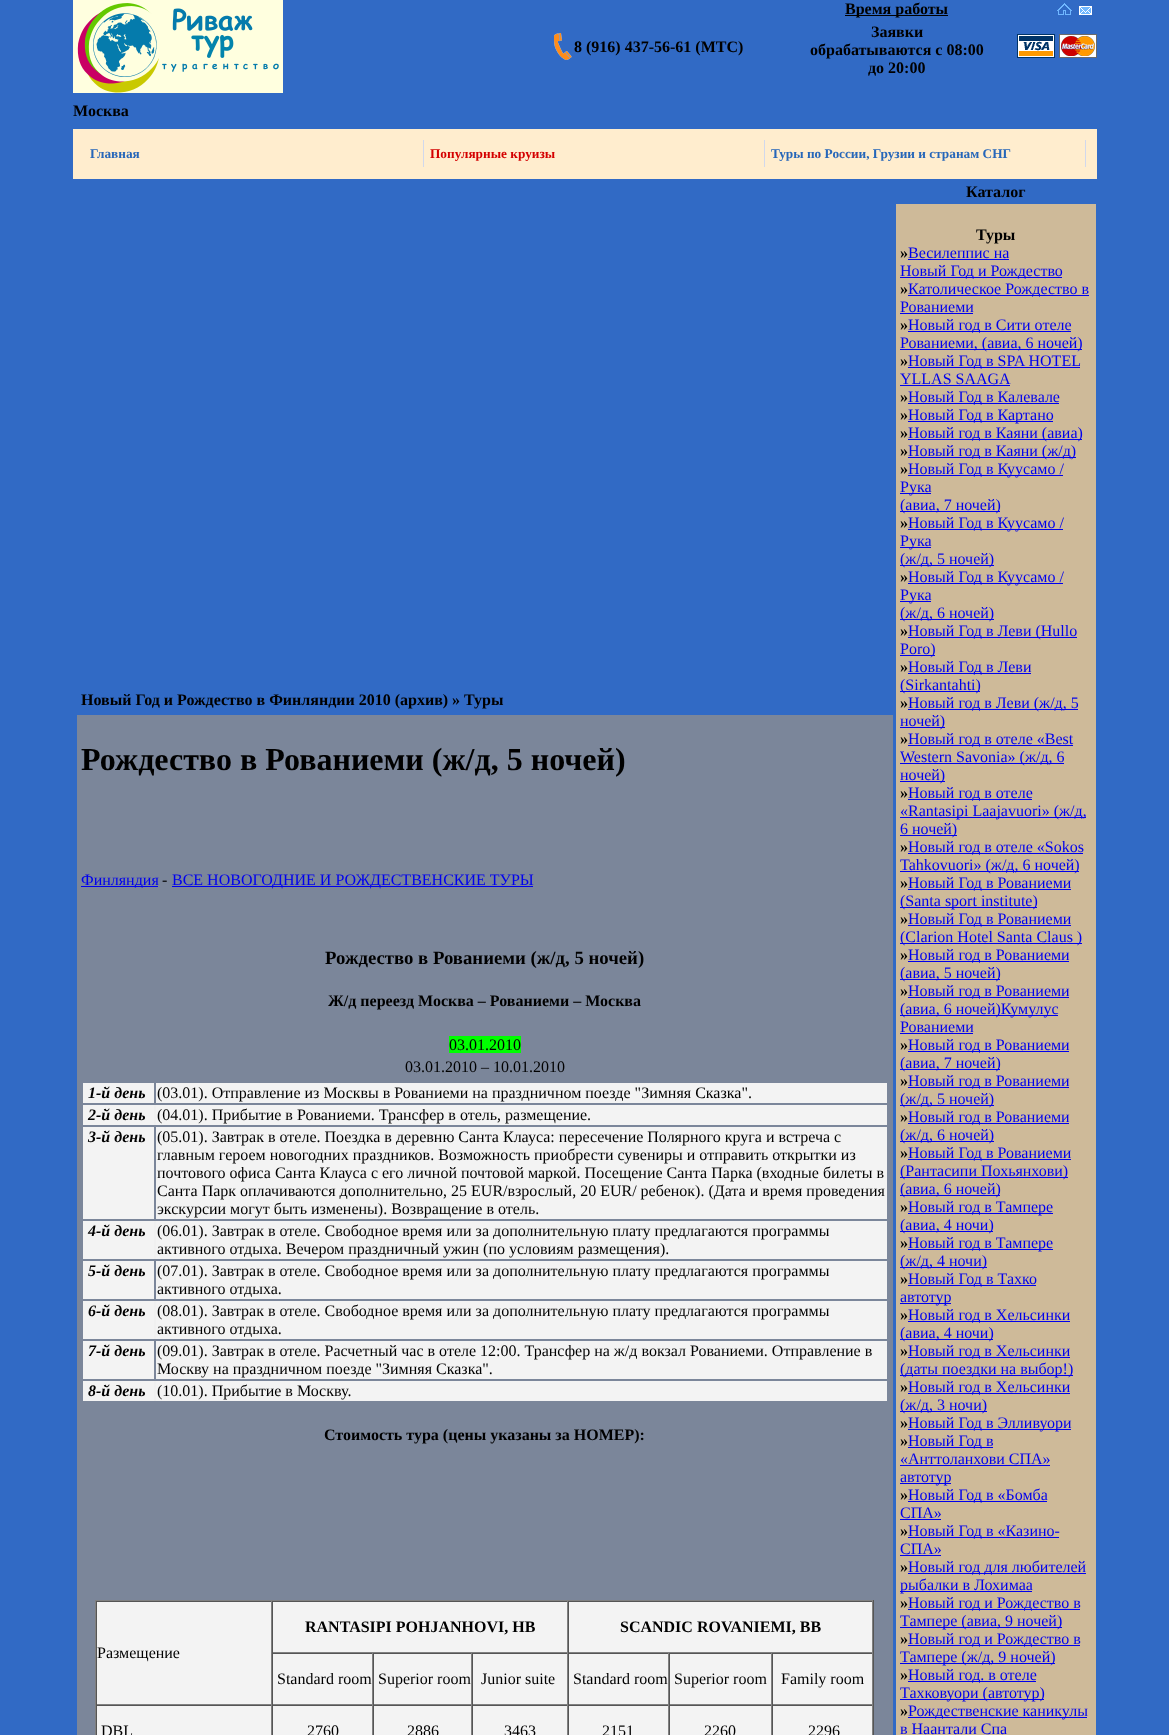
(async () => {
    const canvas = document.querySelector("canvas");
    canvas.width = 1169;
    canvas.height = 1735;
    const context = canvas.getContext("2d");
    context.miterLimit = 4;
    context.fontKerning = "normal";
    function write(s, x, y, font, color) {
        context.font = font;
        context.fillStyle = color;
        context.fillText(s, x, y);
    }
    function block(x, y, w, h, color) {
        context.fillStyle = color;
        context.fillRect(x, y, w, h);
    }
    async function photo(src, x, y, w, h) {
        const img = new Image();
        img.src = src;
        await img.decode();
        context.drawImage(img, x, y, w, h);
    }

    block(0, 0, 1169, 1735, "rgb(49, 106, 197)");
    await photo("media/1.png", 73, 0, 210, 93);
    await photo("media/2.png", 554, 33, 18, 27);
    write("8 (916) 437-56-61 (МТС)", 574, 52, "bold 16px Liberation Serif", "rgb(0, 0, 0)");
    block(845, 15, 103, 1, "rgb(0, 0, 0)");
    write("Время работы", 845, 14, "bold 16px Liberation Serif", "rgb(0, 0, 0)");
    await photo("media/3.png", 1057, 3, 15, 12);
    await photo("media/4.png", 1079, 6, 13, 9);
    await photo("media/5.png", 1017, 34, 38, 24);
    await photo("media/6.png", 1059, 34, 38, 24);
    write("Заявки", 871, 37, "bold 16px Liberation Serif", "rgb(0, 0, 0)");
    write("обрабатываются с 08:00", 810, 55, "bold 16px Liberation Serif", "rgb(0, 0, 0)");
    write("до 20:00", 868, 73, "bold 16px Liberation Serif", "rgb(0, 0, 0)");
    write("Москва", 73, 116, "bold 16px Liberation Serif", "rgb(0, 0, 0)");
    block(73, 129, 1024, 50, "rgb(255, 237, 206)");
    block(423, 140, 1, 28, "rgb(209, 216, 236)");
    block(423, 167, 1, 1, "rgb(255, 237, 206)");
    write("Главная", 90, 158, "bold 13.3px Liberation Serif", "rgb(38, 102, 185)");
    block(764, 140, 1, 28, "rgb(209, 216, 236)");
    block(764, 167, 1, 1, "rgb(255, 237, 206)");
    write("Популярные круизы", 430, 158, "bold 13.3px Liberation Serif", "rgb(212, 0, 0)");
    block(1085, 140, 1, 28, "rgb(209, 216, 236)");
    block(1085, 167, 1, 1, "rgb(255, 237, 206)");
    write("Туры по России, Грузии и странам СНГ", 771, 158, "bold 13.3px Liberation Serif", "rgb(38, 102, 185)");
    write("Новый Год и Рождество в Финляндии 2010 (архив) » Туры", 81, 705, "bold 16px Liberation Serif", "rgb(0, 0, 0)");
    block(77, 715, 816, 1020, "rgb(123, 134, 154)");
    write("Рождество в Рованиеми (ж/д, 5 ночей)", 81, 770, "bold 32px Liberation Serif", "rgb(0, 0, 0)");
    block(81, 886, 77, 1, "rgb(0, 0, 238)");
    write("Финляндия", 81, 885, "16px Liberation Serif", "rgb(0, 0, 238)");
    write("-", 162, 885, "16px Liberation Serif", "rgb(0, 0, 0)");
    block(172, 886, 361, 1, "rgb(0, 0, 238)");
    write("ВСЕ НОВОГОДНИЕ И РОЖДЕСТВЕНСКИЕ ТУРЫ", 172, 885, "16px Liberation Serif", "rgb(0, 0, 238)");
    write("Рождество в Рованиеми (ж/д, 5 ночей)", 325, 964, "bold 18.75px Liberation Serif", "rgb(0, 0, 0)");
    write("Ж/д переезд Москва – Рованиеми – Москва", 328, 1006, "bold 16px Liberation Serif", "rgb(0, 0, 0)");
    block(449, 1036, 72, 17, "rgb(0, 255, 0)");
    write("03.01.2010", 449, 1050, "16px Liberation Serif", "rgb(0, 0, 0)");
    write("03.01.2010 – 10.01.2010", 405, 1072, "16px Liberation Serif", "rgb(0, 0, 0)");
    block(83, 1083, 71, 20, "rgb(243, 243, 243)");
    write("1-й день", 88, 1098, "italic bold 16px Liberation Serif", "rgb(0, 0, 0)");
    block(156, 1083, 731, 20, "rgb(243, 243, 243)");
    write("(03.01). Отправление из Москвы в Рованиеми на праздничном поезде \"Зимняя Сказка\".", 157, 1098, "16px Liberation Serif", "rgb(0, 0, 0)");
    block(154, 1105, 2, 20, "rgb(240, 240, 240)");
    block(83, 1105, 71, 20, "rgb(243, 243, 243)");
    write("2-й день", 88, 1120, "italic bold 16px Liberation Serif", "rgb(0, 0, 0)");
    block(156, 1105, 731, 20, "rgb(243, 243, 243)");
    write("(04.01). Прибытие в Рованиеми. Трансфер в отель, размещение.", 157, 1120, "16px Liberation Serif", "rgb(0, 0, 0)");
    block(83, 1127, 71, 92, "rgb(243, 243, 243)");
    write("3-й день", 88, 1142, "italic bold 16px Liberation Serif", "rgb(0, 0, 0)");
    block(156, 1127, 731, 92, "rgb(243, 243, 243)");
    write("(05.01). Завтрак в отеле. Поездка в деревню Санта Клауса: пересечение Полярного круга и встреча с", 157, 1142, "16px Liberation Serif", "rgb(0, 0, 0)");
    write("главным героем новогодних праздников. Возможность приобрести сувениры и отправить открытки из", 157, 1160, "16px Liberation Serif", "rgb(0, 0, 0)");
    write("почтового офиса Санта Клауса с его личной почтовой маркой. Посещение Санта Парка (входные билеты в", 157, 1178, "16px Liberation Serif", "rgb(0, 0, 0)");
    write("Санта Парк оплачиваются дополнительно, 25 EUR/взрослый, 20 EUR/ ребенок). (Дата и время проведения", 157, 1196, "16px Liberation Serif", "rgb(0, 0, 0)");
    write("экскурсии могут быть изменены). Возвращение в отель.", 157, 1214, "16px Liberation Serif", "rgb(0, 0, 0)");
    block(154, 1221, 2, 38, "rgb(240, 240, 240)");
    block(83, 1221, 71, 38, "rgb(243, 243, 243)");
    write("4-й день", 88, 1236, "italic bold 16px Liberation Serif", "rgb(0, 0, 0)");
    block(156, 1221, 731, 38, "rgb(243, 243, 243)");
    write("(06.01). Завтрак в отеле. Свободное время или за дополнительную плату предлагаются программы", 157, 1236, "16px Liberation Serif", "rgb(0, 0, 0)");
    write("активного отдыха. Вечером праздничный ужин (по условиям размещения).", 157, 1254, "16px Liberation Serif", "rgb(0, 0, 0)");
    block(83, 1261, 71, 38, "rgb(243, 243, 243)");
    write("5-й день", 88, 1276, "italic bold 16px Liberation Serif", "rgb(0, 0, 0)");
    block(156, 1261, 731, 38, "rgb(243, 243, 243)");
    write("(07.01). Завтрак в отеле. Свободное время или за дополнительную плату предлагаются программы", 157, 1276, "16px Liberation Serif", "rgb(0, 0, 0)");
    write("активного отдыха.", 157, 1294, "16px Liberation Serif", "rgb(0, 0, 0)");
    block(154, 1301, 2, 38, "rgb(240, 240, 240)");
    block(83, 1301, 71, 38, "rgb(243, 243, 243)");
    write("6-й день", 88, 1316, "italic bold 16px Liberation Serif", "rgb(0, 0, 0)");
    block(156, 1301, 731, 38, "rgb(243, 243, 243)");
    write("(08.01). Завтрак в отеле. Свободное время или за дополнительную плату предлагаются программы", 157, 1316, "16px Liberation Serif", "rgb(0, 0, 0)");
    write("активного отдыха.", 157, 1334, "16px Liberation Serif", "rgb(0, 0, 0)");
    block(83, 1341, 71, 38, "rgb(243, 243, 243)");
    write("7-й день", 88, 1356, "italic bold 16px Liberation Serif", "rgb(0, 0, 0)");
    block(156, 1341, 731, 38, "rgb(243, 243, 243)");
    write("(09.01). Завтрак в отеле. Расчетный час в отеле 12:00. Трансфер на ж/д вокзал Рованиеми. Отправление в", 157, 1356, "16px Liberation Serif", "rgb(0, 0, 0)");
    write("Москву на праздничном поезде \"Зимняя Сказка\".", 157, 1374, "16px Liberation Serif", "rgb(0, 0, 0)");
    block(154, 1381, 2, 20, "rgb(240, 240, 240)");
    block(83, 1381, 71, 20, "rgb(243, 243, 243)");
    write("8-й день", 88, 1396, "italic bold 16px Liberation Serif", "rgb(0, 0, 0)");
    block(156, 1381, 731, 20, "rgb(243, 243, 243)");
    write("(10.01). Прибытие в Москву.", 157, 1396, "16px Liberation Serif", "rgb(0, 0, 0)");
    write("Стоимость тура (цены указаны за НОМЕР):", 324, 1440, "bold 16px Liberation Serif", "rgb(0, 0, 0)");
    block(97, 1602, 775, 133, "rgb(243, 243, 243)");
    block(95, 1600, 779, 1, "rgb(128, 128, 128)");
    block(873, 1600, 1, 135, "rgb(85, 85, 85)");
    block(95, 1600, 1, 135, "rgb(128, 128, 128)");
    block(96, 1601, 777, 1, "rgb(85, 85, 85)");
    block(567, 1601, 1, 52, "rgb(128, 128, 128)");
    block(272, 1652, 296, 1, "rgb(128, 128, 128)");
    block(272, 1601, 1, 52, "rgb(85, 85, 85)");
    write("RANTASIPI POHJANHOVI, HB", 305, 1632, "bold 16px Liberation Serif", "rgb(0, 0, 0)");
    block(872, 1601, 1, 52, "rgb(128, 128, 128)");
    block(568, 1652, 305, 1, "rgb(128, 128, 128)");
    block(568, 1601, 1, 52, "rgb(85, 85, 85)");
    write("SCANDIC ROVANIEMI, BB", 620, 1632, "bold 16px Liberation Serif", "rgb(0, 0, 0)");
    block(271, 1601, 1, 104, "rgb(128, 128, 128)");
    block(96, 1704, 176, 1, "rgb(128, 128, 128)");
    block(96, 1601, 1, 104, "rgb(85, 85, 85)");
    write("Размещение", 97, 1658, "16px Liberation Serif", "rgb(0, 0, 0)");
    block(272, 1653, 601, 1, "rgb(85, 85, 85)");
    block(372, 1653, 1, 52, "rgb(128, 128, 128)");
    block(272, 1704, 101, 1, "rgb(128, 128, 128)");
    block(272, 1653, 1, 52, "rgb(85, 85, 85)");
    write("Standard room", 277, 1684, "16px Liberation Serif", "rgb(0, 0, 0)");
    block(471, 1653, 1, 52, "rgb(128, 128, 128)");
    block(373, 1704, 99, 1, "rgb(128, 128, 128)");
    block(373, 1653, 1, 52, "rgb(85, 85, 85)");
    write("Superior room", 378, 1684, "16px Liberation Serif", "rgb(0, 0, 0)");
    block(567, 1653, 1, 52, "rgb(128, 128, 128)");
    block(472, 1704, 96, 1, "rgb(128, 128, 128)");
    block(472, 1653, 1, 52, "rgb(85, 85, 85)");
    write("Junior suite", 481, 1684, "16px Liberation Serif", "rgb(0, 0, 0)");
    block(668, 1653, 1, 52, "rgb(128, 128, 128)");
    block(568, 1704, 101, 1, "rgb(128, 128, 128)");
    block(568, 1653, 1, 52, "rgb(85, 85, 85)");
    write("Standard room", 573, 1684, "16px Liberation Serif", "rgb(0, 0, 0)");
    block(771, 1653, 1, 52, "rgb(128, 128, 128)");
    block(669, 1704, 103, 1, "rgb(128, 128, 128)");
    block(669, 1653, 1, 52, "rgb(85, 85, 85)");
    write("Superior room", 674, 1684, "16px Liberation Serif", "rgb(0, 0, 0)");
    block(872, 1653, 1, 52, "rgb(128, 128, 128)");
    block(772, 1704, 101, 1, "rgb(128, 128, 128)");
    block(772, 1653, 1, 52, "rgb(85, 85, 85)");
    write("Family room", 781, 1684, "16px Liberation Serif", "rgb(0, 0, 0)");
    block(96, 1705, 777, 1, "rgb(85, 85, 85)");
    block(271, 1705, 1, 30, "rgb(128, 128, 128)");
    block(96, 1705, 1, 30, "rgb(85, 85, 85)");
    write("DBL", 101, 1736, "16px Liberation Serif", "rgb(0, 0, 0)");
    block(372, 1705, 1, 30, "rgb(128, 128, 128)");
    block(272, 1705, 1, 30, "rgb(85, 85, 85)");
    write("2760", 307, 1736, "16px Liberation Serif", "rgb(0, 0, 0)");
    block(471, 1705, 1, 30, "rgb(128, 128, 128)");
    block(373, 1705, 1, 30, "rgb(85, 85, 85)");
    write("2886", 407, 1736, "16px Liberation Serif", "rgb(0, 0, 0)");
    block(567, 1705, 1, 30, "rgb(128, 128, 128)");
    block(472, 1705, 1, 30, "rgb(85, 85, 85)");
    write("3463", 504, 1736, "16px Liberation Serif", "rgb(0, 0, 0)");
    block(668, 1705, 1, 30, "rgb(128, 128, 128)");
    block(568, 1705, 1, 30, "rgb(85, 85, 85)");
    write("2151", 602, 1736, "16px Liberation Serif", "rgb(0, 0, 0)");
    block(771, 1705, 1, 30, "rgb(128, 128, 128)");
    block(669, 1705, 1, 30, "rgb(85, 85, 85)");
    write("2260", 704, 1736, "16px Liberation Serif", "rgb(0, 0, 0)");
    block(872, 1705, 1, 30, "rgb(128, 128, 128)");
    block(772, 1705, 1, 30, "rgb(85, 85, 85)");
    write("2296", 808, 1736, "16px Liberation Serif", "rgb(0, 0, 0)");
    write("Каталог", 966, 197, "bold 16px Liberation Serif", "rgb(0, 0, 0)");
    block(896, 204, 200, 1531, "rgb(206, 186, 153)");
    write("Туры", 976, 240, "bold 16px Liberation Serif", "rgb(0, 0, 0)");
    write("»", 900, 258, "bold 16px Liberation Serif", "rgb(0, 0, 0)");
    write("Весилеппис на", 908, 258, "16px Liberation Serif", "rgb(0, 0, 238)");
    block(908, 259, 101, 1, "rgb(0, 0, 238)");
    block(900, 277, 162, 1, "rgb(0, 0, 238)");
    write("Новый Год и Рождество", 900, 276, "16px Liberation Serif", "rgb(0, 0, 238)");
    write("»", 900, 294, "bold 16px Liberation Serif", "rgb(0, 0, 0)");
    block(908, 295, 181, 1, "rgb(0, 0, 238)");
    write("Католическое Рождество в", 908, 294, "16px Liberation Serif", "rgb(0, 0, 238)");
    write("Рованиеми", 900, 312, "16px Liberation Serif", "rgb(0, 0, 238)");
    block(900, 313, 73, 1, "rgb(0, 0, 238)");
    write("»", 900, 330, "bold 16px Liberation Serif", "rgb(0, 0, 0)");
    block(908, 331, 163, 1, "rgb(0, 0, 238)");
    write("Новый год в Cити отеле", 908, 330, "16px Liberation Serif", "rgb(0, 0, 238)");
    block(900, 349, 182, 1, "rgb(0, 0, 238)");
    write("Рованиеми, (авиа, 6 ночей)", 900, 348, "16px Liberation Serif", "rgb(0, 0, 238)");
    write("»", 900, 366, "bold 16px Liberation Serif", "rgb(0, 0, 0)");
    block(908, 367, 172, 1, "rgb(0, 0, 238)");
    write("Новый Год в SPA HOTEL", 908, 366, "16px Liberation Serif", "rgb(0, 0, 238)");
    write("YLLAS SAAGA", 900, 384, "16px Liberation Serif", "rgb(0, 0, 238)");
    block(900, 385, 110, 1, "rgb(0, 0, 238)");
    write("»", 900, 402, "bold 16px Liberation Serif", "rgb(0, 0, 0)");
    block(908, 403, 151, 1, "rgb(0, 0, 238)");
    write("Новый Год в Калевале", 908, 402, "16px Liberation Serif", "rgb(0, 0, 238)");
    write("»", 900, 420, "bold 16px Liberation Serif", "rgb(0, 0, 0)");
    block(908, 421, 145, 1, "rgb(0, 0, 238)");
    write("Новый Год в Картано", 908, 420, "16px Liberation Serif", "rgb(0, 0, 238)");
    write("»", 900, 438, "bold 16px Liberation Serif", "rgb(0, 0, 0)");
    block(908, 439, 174, 1, "rgb(0, 0, 238)");
    write("Новый год в Каяни (авиа)", 908, 438, "16px Liberation Serif", "rgb(0, 0, 238)");
    write("»", 900, 456, "bold 16px Liberation Serif", "rgb(0, 0, 0)");
    block(908, 457, 168, 1, "rgb(0, 0, 238)");
    write("Новый год в Каяни (ж/д)", 908, 456, "16px Liberation Serif", "rgb(0, 0, 238)");
    write("»", 900, 474, "bold 16px Liberation Serif", "rgb(0, 0, 0)");
    block(908, 475, 155, 1, "rgb(0, 0, 238)");
    write("Новый Год в Куусамо /", 908, 474, "16px Liberation Serif", "rgb(0, 0, 238)");
    block(900, 493, 31, 1, "rgb(0, 0, 238)");
    write("Рука", 900, 492, "16px Liberation Serif", "rgb(0, 0, 238)");
    block(900, 511, 100, 1, "rgb(0, 0, 238)");
    write("(авиа, 7 ночей)", 900, 510, "16px Liberation Serif", "rgb(0, 0, 238)");
    write("»", 900, 528, "bold 16px Liberation Serif", "rgb(0, 0, 0)");
    block(908, 529, 155, 1, "rgb(0, 0, 238)");
    write("Новый Год в Куусамо /", 908, 528, "16px Liberation Serif", "rgb(0, 0, 238)");
    block(900, 547, 31, 1, "rgb(0, 0, 238)");
    write("Рука", 900, 546, "16px Liberation Serif", "rgb(0, 0, 238)");
    block(900, 565, 94, 1, "rgb(0, 0, 238)");
    write("(ж/д, 5 ночей)", 900, 564, "16px Liberation Serif", "rgb(0, 0, 238)");
    write("»", 900, 582, "bold 16px Liberation Serif", "rgb(0, 0, 0)");
    block(908, 583, 155, 1, "rgb(0, 0, 238)");
    write("Новый Год в Куусамо /", 908, 582, "16px Liberation Serif", "rgb(0, 0, 238)");
    block(900, 601, 31, 1, "rgb(0, 0, 238)");
    write("Рука", 900, 600, "16px Liberation Serif", "rgb(0, 0, 238)");
    block(900, 619, 94, 1, "rgb(0, 0, 238)");
    write("(ж/д, 6 ночей)", 900, 618, "16px Liberation Serif", "rgb(0, 0, 238)");
    write("»", 900, 636, "bold 16px Liberation Serif", "rgb(0, 0, 0)");
    block(908, 637, 169, 1, "rgb(0, 0, 238)");
    write("Новый Год в Леви (Hullo", 908, 636, "16px Liberation Serif", "rgb(0, 0, 238)");
    block(900, 655, 35, 1, "rgb(0, 0, 238)");
    write("Poro)", 900, 654, "16px Liberation Serif", "rgb(0, 0, 238)");
    write("»", 900, 672, "bold 16px Liberation Serif", "rgb(0, 0, 0)");
    block(908, 673, 123, 1, "rgb(0, 0, 238)");
    write("Новый Год в Леви", 908, 672, "16px Liberation Serif", "rgb(0, 0, 238)");
    block(900, 691, 80, 1, "rgb(0, 0, 238)");
    write("(Sirkantahti)", 900, 690, "16px Liberation Serif", "rgb(0, 0, 238)");
    write("»", 900, 708, "bold 16px Liberation Serif", "rgb(0, 0, 0)");
    block(908, 709, 170, 1, "rgb(0, 0, 238)");
    write("Новый год в Леви (ж/д, 5", 908, 708, "16px Liberation Serif", "rgb(0, 0, 238)");
    block(900, 727, 45, 1, "rgb(0, 0, 238)");
    write("ночей)", 900, 726, "16px Liberation Serif", "rgb(0, 0, 238)");
    write("»", 900, 744, "bold 16px Liberation Serif", "rgb(0, 0, 0)");
    block(908, 745, 165, 1, "rgb(0, 0, 238)");
    write("Новый год в отеле «Best", 908, 744, "16px Liberation Serif", "rgb(0, 0, 238)");
    block(900, 763, 164, 1, "rgb(0, 0, 238)");
    write("Western Savonia» (ж/д, 6", 900, 762, "16px Liberation Serif", "rgb(0, 0, 238)");
    block(900, 781, 45, 1, "rgb(0, 0, 238)");
    write("ночей)", 900, 780, "16px Liberation Serif", "rgb(0, 0, 238)");
    write("»", 900, 798, "bold 16px Liberation Serif", "rgb(0, 0, 0)");
    block(908, 799, 124, 1, "rgb(0, 0, 238)");
    write("Новый год в отеле", 908, 798, "16px Liberation Serif", "rgb(0, 0, 238)");
    block(900, 817, 186, 1, "rgb(0, 0, 238)");
    write("«Rantasipi Laajavuori» (ж/д,", 900, 816, "16px Liberation Serif", "rgb(0, 0, 238)");
    block(900, 835, 57, 1, "rgb(0, 0, 238)");
    write("6 ночей)", 900, 834, "16px Liberation Serif", "rgb(0, 0, 238)");
    write("»", 900, 852, "bold 16px Liberation Serif", "rgb(0, 0, 0)");
    block(908, 853, 175, 1, "rgb(0, 0, 238)");
    write("Новый год в отеле «Sokos", 908, 852, "16px Liberation Serif", "rgb(0, 0, 238)");
    block(900, 871, 179, 1, "rgb(0, 0, 238)");
    write("Tahkovuori» (ж/д, 6 ночей)", 900, 870, "16px Liberation Serif", "rgb(0, 0, 238)");
    write("»", 900, 888, "bold 16px Liberation Serif", "rgb(0, 0, 0)");
    block(908, 889, 163, 1, "rgb(0, 0, 238)");
    write("Новый Год в Рованиеми", 908, 888, "16px Liberation Serif", "rgb(0, 0, 238)");
    block(900, 907, 137, 1, "rgb(0, 0, 238)");
    write("(Santa sport institute)", 900, 906, "16px Liberation Serif", "rgb(0, 0, 238)");
    write("»", 900, 924, "bold 16px Liberation Serif", "rgb(0, 0, 0)");
    block(908, 925, 163, 1, "rgb(0, 0, 238)");
    write("Новый Год в Рованиеми", 908, 924, "16px Liberation Serif", "rgb(0, 0, 238)");
    block(900, 943, 182, 1, "rgb(0, 0, 238)");
    write("(Clarion Hotel Santa Claus )", 900, 942, "16px Liberation Serif", "rgb(0, 0, 238)");
    write("»", 900, 960, "bold 16px Liberation Serif", "rgb(0, 0, 0)");
    block(908, 961, 161, 1, "rgb(0, 0, 238)");
    write("Новый год в Рованиеми", 908, 960, "16px Liberation Serif", "rgb(0, 0, 238)");
    block(900, 979, 100, 1, "rgb(0, 0, 238)");
    write("(авиа, 5 ночей)", 900, 978, "16px Liberation Serif", "rgb(0, 0, 238)");
    write("»", 900, 996, "bold 16px Liberation Serif", "rgb(0, 0, 0)");
    block(908, 997, 161, 1, "rgb(0, 0, 238)");
    write("Новый год в Рованиеми", 908, 996, "16px Liberation Serif", "rgb(0, 0, 238)");
    block(900, 1015, 158, 1, "rgb(0, 0, 238)");
    write("(авиа, 6 ночей)Кумулус", 900, 1014, "16px Liberation Serif", "rgb(0, 0, 238)");
    write("Рованиеми", 900, 1032, "16px Liberation Serif", "rgb(0, 0, 238)");
    block(900, 1033, 73, 1, "rgb(0, 0, 238)");
    write("»", 900, 1050, "bold 16px Liberation Serif", "rgb(0, 0, 0)");
    block(908, 1051, 161, 1, "rgb(0, 0, 238)");
    write("Новый год в Рованиеми", 908, 1050, "16px Liberation Serif", "rgb(0, 0, 238)");
    block(900, 1069, 100, 1, "rgb(0, 0, 238)");
    write("(авиа, 7 ночей)", 900, 1068, "16px Liberation Serif", "rgb(0, 0, 238)");
    write("»", 900, 1086, "bold 16px Liberation Serif", "rgb(0, 0, 0)");
    block(908, 1087, 161, 1, "rgb(0, 0, 238)");
    write("Новый год в Рованиеми", 908, 1086, "16px Liberation Serif", "rgb(0, 0, 238)");
    block(900, 1105, 94, 1, "rgb(0, 0, 238)");
    write("(ж/д, 5 ночей)", 900, 1104, "16px Liberation Serif", "rgb(0, 0, 238)");
    write("»", 900, 1122, "bold 16px Liberation Serif", "rgb(0, 0, 0)");
    block(908, 1123, 161, 1, "rgb(0, 0, 238)");
    write("Новый год в Рованиеми", 908, 1122, "16px Liberation Serif", "rgb(0, 0, 238)");
    block(900, 1141, 94, 1, "rgb(0, 0, 238)");
    write("(ж/д, 6 ночей)", 900, 1140, "16px Liberation Serif", "rgb(0, 0, 238)");
    write("»", 900, 1158, "bold 16px Liberation Serif", "rgb(0, 0, 0)");
    block(908, 1159, 163, 1, "rgb(0, 0, 238)");
    write("Новый Год в Рованиеми", 908, 1158, "16px Liberation Serif", "rgb(0, 0, 238)");
    block(900, 1177, 168, 1, "rgb(0, 0, 238)");
    write("(Рантасипи Похьянхови)", 900, 1176, "16px Liberation Serif", "rgb(0, 0, 238)");
    block(900, 1195, 100, 1, "rgb(0, 0, 238)");
    write("(авиа, 6 ночей)", 900, 1194, "16px Liberation Serif", "rgb(0, 0, 238)");
    write("»", 900, 1212, "bold 16px Liberation Serif", "rgb(0, 0, 0)");
    block(908, 1213, 145, 1, "rgb(0, 0, 238)");
    write("Новый год в Тампере", 908, 1212, "16px Liberation Serif", "rgb(0, 0, 238)");
    block(900, 1231, 93, 1, "rgb(0, 0, 238)");
    write("(авиа, 4 ночи)", 900, 1230, "16px Liberation Serif", "rgb(0, 0, 238)");
    write("»", 900, 1248, "bold 16px Liberation Serif", "rgb(0, 0, 0)");
    block(908, 1249, 145, 1, "rgb(0, 0, 238)");
    write("Новый год в Тампере", 908, 1248, "16px Liberation Serif", "rgb(0, 0, 238)");
    block(900, 1267, 87, 1, "rgb(0, 0, 238)");
    write("(ж/д, 4 ночи)", 900, 1266, "16px Liberation Serif", "rgb(0, 0, 238)");
    write("»", 900, 1284, "bold 16px Liberation Serif", "rgb(0, 0, 0)");
    block(908, 1285, 128, 1, "rgb(0, 0, 238)");
    write("Новый Год в Тахко", 908, 1284, "16px Liberation Serif", "rgb(0, 0, 238)");
    block(900, 1303, 51, 1, "rgb(0, 0, 238)");
    write("автотур", 900, 1302, "16px Liberation Serif", "rgb(0, 0, 238)");
    write("»", 900, 1320, "bold 16px Liberation Serif", "rgb(0, 0, 0)");
    block(908, 1321, 162, 1, "rgb(0, 0, 238)");
    write("Новый год в Хельсинки", 908, 1320, "16px Liberation Serif", "rgb(0, 0, 238)");
    block(900, 1339, 93, 1, "rgb(0, 0, 238)");
    write("(авиа, 4 ночи)", 900, 1338, "16px Liberation Serif", "rgb(0, 0, 238)");
    write("»", 900, 1356, "bold 16px Liberation Serif", "rgb(0, 0, 0)");
    block(908, 1357, 162, 1, "rgb(0, 0, 238)");
    write("Новый год в Хельсинки", 908, 1356, "16px Liberation Serif", "rgb(0, 0, 238)");
    block(900, 1375, 173, 1, "rgb(0, 0, 238)");
    write("(даты поездки на выбор!)", 900, 1374, "16px Liberation Serif", "rgb(0, 0, 238)");
    write("»", 900, 1392, "bold 16px Liberation Serif", "rgb(0, 0, 0)");
    block(908, 1393, 162, 1, "rgb(0, 0, 238)");
    write("Новый год в Хельсинки", 908, 1392, "16px Liberation Serif", "rgb(0, 0, 238)");
    block(900, 1411, 87, 1, "rgb(0, 0, 238)");
    write("(ж/д, 3 ночи)", 900, 1410, "16px Liberation Serif", "rgb(0, 0, 238)");
    write("»", 900, 1428, "bold 16px Liberation Serif", "rgb(0, 0, 0)");
    block(908, 1429, 163, 1, "rgb(0, 0, 238)");
    write("Новый Год в Элливуори", 908, 1428, "16px Liberation Serif", "rgb(0, 0, 238)");
    write("»", 900, 1446, "bold 16px Liberation Serif", "rgb(0, 0, 0)");
    block(908, 1447, 85, 1, "rgb(0, 0, 238)");
    write("Новый Год в", 908, 1446, "16px Liberation Serif", "rgb(0, 0, 238)");
    write("«Анттоланхови СПА»", 900, 1464, "16px Liberation Serif", "rgb(0, 0, 238)");
    block(900, 1465, 150, 1, "rgb(0, 0, 238)");
    block(900, 1483, 51, 1, "rgb(0, 0, 238)");
    write("автотур", 900, 1482, "16px Liberation Serif", "rgb(0, 0, 238)");
    write("»", 900, 1500, "bold 16px Liberation Serif", "rgb(0, 0, 0)");
    block(908, 1501, 139, 1, "rgb(0, 0, 238)");
    write("Новый Год в «Бомба", 908, 1500, "16px Liberation Serif", "rgb(0, 0, 238)");
    write("СПА»", 900, 1518, "16px Liberation Serif", "rgb(0, 0, 238)");
    block(900, 1519, 41, 1, "rgb(0, 0, 238)");
    write("»", 900, 1536, "bold 16px Liberation Serif", "rgb(0, 0, 0)");
    block(908, 1537, 151, 1, "rgb(0, 0, 238)");
    write("Новый Год в «Казино-", 908, 1536, "16px Liberation Serif", "rgb(0, 0, 238)");
    write("СПА»", 900, 1554, "16px Liberation Serif", "rgb(0, 0, 238)");
    block(900, 1555, 41, 1, "rgb(0, 0, 238)");
    write("»", 900, 1572, "bold 16px Liberation Serif", "rgb(0, 0, 0)");
    block(908, 1573, 178, 1, "rgb(0, 0, 238)");
    write("Новый год для любителей", 908, 1572, "16px Liberation Serif", "rgb(0, 0, 238)");
    block(900, 1591, 132, 1, "rgb(0, 0, 238)");
    write("рыбалки в Лохимаа", 900, 1590, "16px Liberation Serif", "rgb(0, 0, 238)");
    write("»", 900, 1608, "bold 16px Liberation Serif", "rgb(0, 0, 0)");
    block(908, 1609, 172, 1, "rgb(0, 0, 238)");
    write("Новый год и Рождество в", 908, 1608, "16px Liberation Serif", "rgb(0, 0, 238)");
    block(900, 1627, 162, 1, "rgb(0, 0, 238)");
    write("Тампере (авиа, 9 ночей)", 900, 1626, "16px Liberation Serif", "rgb(0, 0, 238)");
    write("»", 900, 1644, "bold 16px Liberation Serif", "rgb(0, 0, 0)");
    block(908, 1645, 172, 1, "rgb(0, 0, 238)");
    write("Новый год и Рождество в", 908, 1644, "16px Liberation Serif", "rgb(0, 0, 238)");
    block(900, 1663, 155, 1, "rgb(0, 0, 238)");
    write("Тампере (ж/д, 9 ночей)", 900, 1662, "16px Liberation Serif", "rgb(0, 0, 238)");
    write("»", 900, 1680, "bold 16px Liberation Serif", "rgb(0, 0, 0)");
    block(908, 1681, 128, 1, "rgb(0, 0, 238)");
    write("Новый год. в отеле", 908, 1680, "16px Liberation Serif", "rgb(0, 0, 238)");
    block(900, 1699, 144, 1, "rgb(0, 0, 238)");
    write("Тахковуори (автотур)", 900, 1698, "16px Liberation Serif", "rgb(0, 0, 238)");
    write("»", 900, 1716, "bold 16px Liberation Serif", "rgb(0, 0, 0)");
    block(908, 1717, 179, 1, "rgb(0, 0, 238)");
    write("Рождественские каникулы", 908, 1716, "16px Liberation Serif", "rgb(0, 0, 238)");
    write("в Наантали Спа", 900, 1734, "16px Liberation Serif", "rgb(0, 0, 238)");
})();
